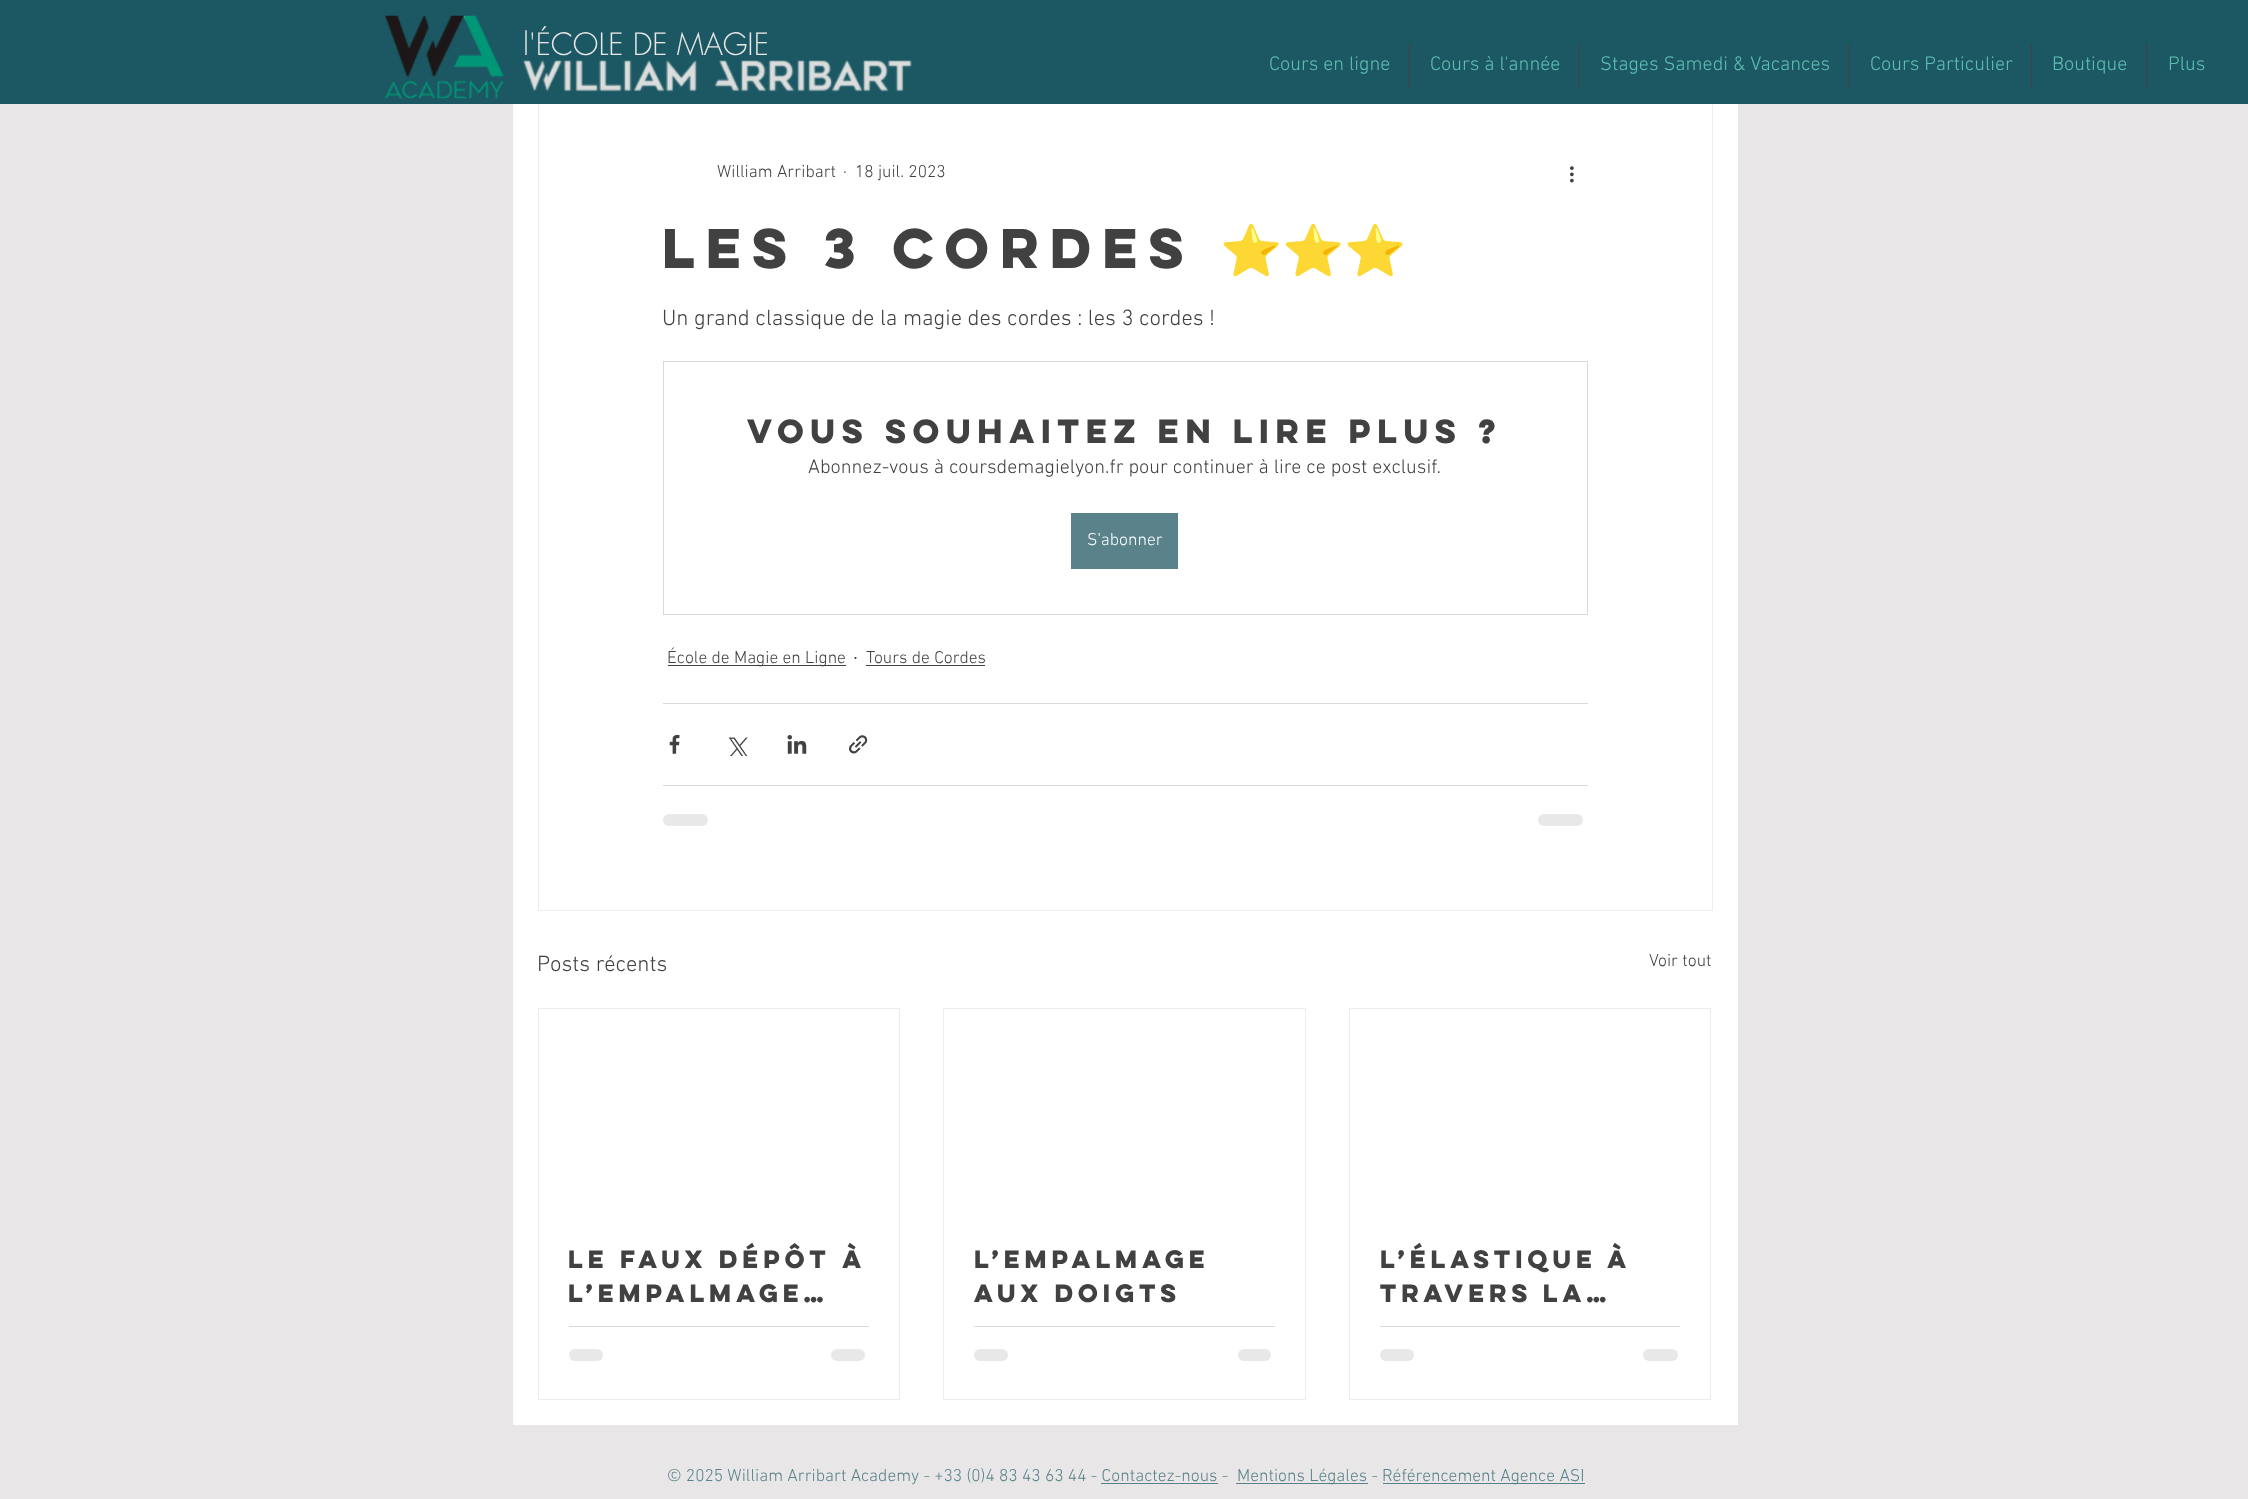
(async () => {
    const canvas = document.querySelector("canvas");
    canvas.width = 2248;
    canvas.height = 1499;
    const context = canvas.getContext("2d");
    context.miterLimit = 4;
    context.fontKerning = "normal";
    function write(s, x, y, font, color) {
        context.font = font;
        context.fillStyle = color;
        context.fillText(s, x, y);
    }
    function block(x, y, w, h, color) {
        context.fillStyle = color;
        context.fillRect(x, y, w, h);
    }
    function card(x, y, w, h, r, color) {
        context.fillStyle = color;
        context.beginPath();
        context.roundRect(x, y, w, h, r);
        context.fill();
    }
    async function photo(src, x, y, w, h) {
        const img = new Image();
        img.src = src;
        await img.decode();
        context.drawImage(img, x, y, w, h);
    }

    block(0, 0, 2248, 1499, "rgb(232, 230, 230)");
    block(513, 104, 1225, 1321, "rgb(255, 255, 255)");
    context.strokeStyle = "rgb(238, 236, 236)";
    context.strokeRect(538.5, 76.5, 1174, 834);
    block(0, 0, 2248, 104, "rgb(28, 88, 99)");
    await photo("media/1.png", 385, 15, 119, 84);
    write("l'ÉCOLE DE MAGIE", 523, 55, "300 30px futura", "rgb(232, 230, 230)");
    await photo("media/2.png", 523, 60, 389, 32);
    write("Cours en ligne", 1269, 70, "300 20px 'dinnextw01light'", "rgb(96, 191, 180)");
    block(1409, 43, 1, 46, "rgb(65, 65, 65)");
    write("Cours à l'année", 1430, 70, "300 20px 'dinnextw01light'", "rgb(96, 191, 180)");
    block(1579, 43, 1, 46, "rgb(65, 65, 65)");
    write("Stages Samedi & Vacances", 1600, 70, "300 20px 'dinnextw01light'", "rgb(96, 191, 180)");
    block(1849, 43, 1, 46, "rgb(65, 65, 65)");
    write("Cours Particulier", 1870, 70, "300 20px 'dinnextw01light'", "rgb(96, 191, 180)");
    block(2031, 43, 1, 46, "rgb(65, 65, 65)");
    write("Boutique", 2052, 70, "300 20px 'dinnextw01light'", "rgb(96, 191, 180)");
    block(2146, 43, 1, 46, "rgb(65, 65, 65)");
    write("Plus", 2168, 70, "300 20px 'dinnextw01light'", "rgb(96, 191, 180)");
    write("William Arribart", 717, 177, "300 17.5px 'dinnextw01light'", "rgb(65, 65, 65)");
    write("·", 843, 177, "300 17.5px 'dinnextw01light'", "rgb(65, 65, 65)");
    write("18 juil. 2023", 855, 177, "300 17.5px 'dinnextw01light'", "rgb(65, 65, 65)");
    await photo("media/3.png", 1570, 166, 4, 17);
    write("Les 3 cordes", 662, 268, "bold 50px 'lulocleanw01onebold'", "rgb(65, 65, 65)");
    write("⭐️⭐️⭐️", 1220, 268, "50px Noto Color Emoji", "rgb(65, 65, 65)");
    write("Un grand classique de la magie des cordes : les 3 cordes !", 662, 325, "300 22.5px 'dinnextw01light'", "rgb(65, 65, 65)");
    context.strokeStyle = "rgb(217, 217, 217)";
    context.strokeRect(663.5, 361.5, 924, 253);
    write("Vous souhaitez en lire plus ?", 747, 443, "bold 30px 'lulocleanw01onebold'", "rgb(65, 65, 65)");
    write("Abonnez-vous à coursdemagielyon.fr pour continuer à lire ce post exclusif.", 808, 473, "300 20px 'dinnextw01light'", "rgb(65, 65, 65)");
    block(1071, 513, 107, 56, "rgb(89, 130, 138)");
    write("S'abonner", 1087, 545, "300 17.5px 'dinnextw01light'", "rgb(255, 255, 255)");
    block(668, 665, 178, 1, "rgb(65, 65, 65)");
    write("École de Magie en Ligne", 667, 663, "300 17.5px 'dinnextw01light'", "rgb(65, 65, 65)");
    write("·", 853, 664, "300 22.5px 'dinnextw01light'", "rgb(65, 65, 65)");
    write("Tours de Cordes", 866, 663, "300 17.5px 'dinnextw01light'", "rgb(65, 65, 65)");
    block(866, 665, 119, 1, "rgb(65, 65, 65)");
    block(663, 703, 925, 1, "rgb(217, 217, 217)");
    await photo("media/4.png", 669, 735, 11, 19);
    await photo("media/5.png", 728, 737, 20, 19);
    await photo("media/6.png", 787, 735, 20, 19);
    await photo("media/7.png", 849, 735, 19, 19);
    block(663, 785, 925, 1, "rgb(217, 217, 217)");
    card(663, 814, 45, 12, 6, "rgb(232, 232, 232)");
    card(1538, 814, 45, 12, 6, "rgb(232, 232, 232)");
    write("Posts récents", 537, 971, "300 22.5px 'dinnextw01light'", "rgb(65, 65, 65)");
    write("Voir tout", 1649, 966, "300 17.5px 'dinnextw01light'", "rgb(65, 65, 65)");
    context.strokeStyle = "rgb(238, 236, 236)";
    context.strokeRect(538.5, 1008.5, 361, 391);
    write("Le faux dépôt à", 568, 1268, "bold 22.5px 'lulocleanw01onebold'", "rgb(65, 65, 65)");
    write("l’empalmage…", 568, 1302, "bold 22.5px 'lulocleanw01onebold'", "rgb(65, 65, 65)");
    block(569, 1326, 300, 1, "rgb(217, 217, 217)");
    card(569, 1349, 34, 12, 6, "rgb(232, 232, 232)");
    card(831, 1349, 34, 12, 6, "rgb(232, 232, 232)");
    context.strokeRect(943.5, 1008.5, 362, 391);
    write("L’empalmage", 974, 1268, "bold 22.5px 'lulocleanw01onebold'", "rgb(65, 65, 65)");
    write("aux doigts", 974, 1302, "bold 22.5px 'lulocleanw01onebold'", "rgb(65, 65, 65)");
    block(974, 1326, 301, 1, "rgb(217, 217, 217)");
    card(974, 1349, 34, 12, 6, "rgb(232, 232, 232)");
    card(1238, 1349, 33, 12, 6, "rgb(232, 232, 232)");
    context.strokeRect(1349.5, 1008.5, 361, 391);
    context.wordSpacing = "-1px";
    write("L’élastique à", 1380, 1268, "bold 22.5px 'lulocleanw01onebold'", "rgb(65, 65, 65)");
    write("travers la…", 1380, 1302, "bold 22.5px 'lulocleanw01onebold'", "rgb(65, 65, 65)");
    block(1380, 1326, 300, 1, "rgb(217, 217, 217)");
    card(1380, 1349, 34, 12, 6, "rgb(232, 232, 232)");
    card(1643, 1349, 35, 12, 6, "rgb(232, 232, 232)");
    context.wordSpacing = "0px";
    write("© 2025 William Arribart Academy - +33 (0)4 83 43 63 44 - Contactez-nous -", 667, 1481, "300 17.5px 'dinnextw01light'", "rgb(89, 130, 138)");
    block(1101, 1483, 117, 1, "rgb(89, 130, 138)");
    block(1236, 1483, 132, 1, "rgb(89, 130, 138)");
    write("Mentions Légales -", 1237, 1481, "300 17.5px 'dinnextw01light'", "rgb(89, 130, 138)");
    block(1383, 1483, 202, 1, "rgb(89, 130, 138)");
    write("Référencement Agence ASI", 1382, 1481, "300 17.5px 'dinnextw01light'", "rgb(89, 130, 138)");
})();
